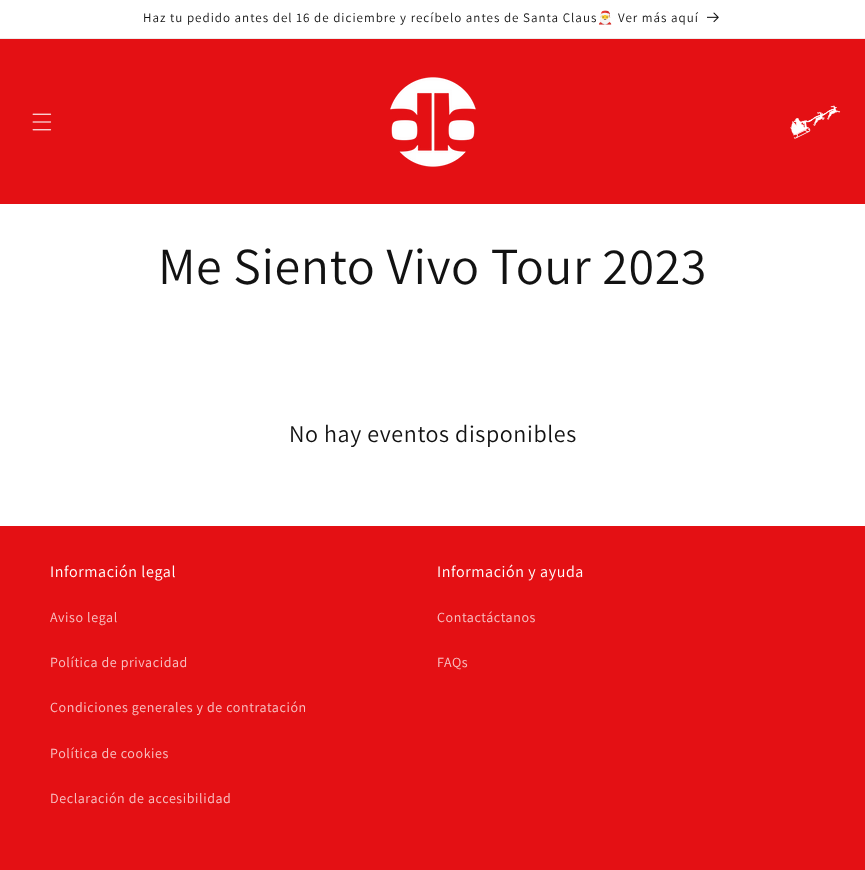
(async () => {
    const canvas = document.querySelector("canvas");
    canvas.width = 865;
    canvas.height = 870;
    const context = canvas.getContext("2d");
    context.miterLimit = 4;
    context.fontKerning = "normal";
    function write(s, x, y, font, color) {
        context.font = font;
        context.fillStyle = color;
        context.fillText(s, x, y);
    }
    function block(x, y, w, h, color) {
        context.fillStyle = color;
        context.fillRect(x, y, w, h);
    }
    async function photo(src, x, y, w, h) {
        const img = new Image();
        img.src = src;
        await img.decode();
        context.drawImage(img, x, y, w, h);
    }

    block(0, 0, 865, 870, "rgb(255, 255, 255)");
    block(0, 38, 865, 1, "rgb(236, 236, 236)");
    context.letterSpacing = "1px";
    write("Haz tu pedido antes del 16 de diciembre y recíbelo antes de Santa Claus", 143, 22, "13px Assistant", "rgb(18, 18, 18)");
    write("🎅", 597, 22, "13px Noto Color Emoji", "rgb(18, 18, 18)");
    write("Ver más aquí", 618, 22, "13px Assistant", "rgb(18, 18, 18)");
    await photo("media/1.png", 707, 12, 12, 11);
    block(0, 39, 865, 165, "rgb(228, 16, 20)");
    await photo("media/2.png", 32, 113, 20, 18);
    await photo("media/3.png", 390, 77, 86, 90);
    await photo("media/4.png", 790, 105, 51, 34);
    context.letterSpacing = "0.6px";
    write("Me Siento Vivo Tour 2023", 158, 284, "52px Assistant", "rgb(18, 18, 18)");
    write("No hay eventos disponibles", 289, 442, "24px Assistant", "rgb(18, 18, 18)");
    block(0, 526, 865, 344, "rgb(228, 16, 20)");
    write("Información legal", 50, 577, "16px Assistant", "rgb(255, 255, 255)");
    write("Aviso legal", 50, 622, "14px Assistant", "rgb(248, 195, 196)");
    write("Política de privacidad", 50, 667, "14px Assistant", "rgb(248, 195, 196)");
    write("Condiciones generales y de contratación", 50, 712, "14px Assistant", "rgb(248, 195, 196)");
    write("Política de cookies", 50, 758, "14px Assistant", "rgb(248, 195, 196)");
    write("Declaración de accesibilidad", 50, 803, "14px Assistant", "rgb(248, 195, 196)");
    write("Información y ayuda", 437, 577, "16px Assistant", "rgb(255, 255, 255)");
    write("Contactáctanos", 437, 622, "14px Assistant", "rgb(248, 195, 196)");
    write("FAQs", 437, 667, "14px Assistant", "rgb(248, 195, 196)");
})();
